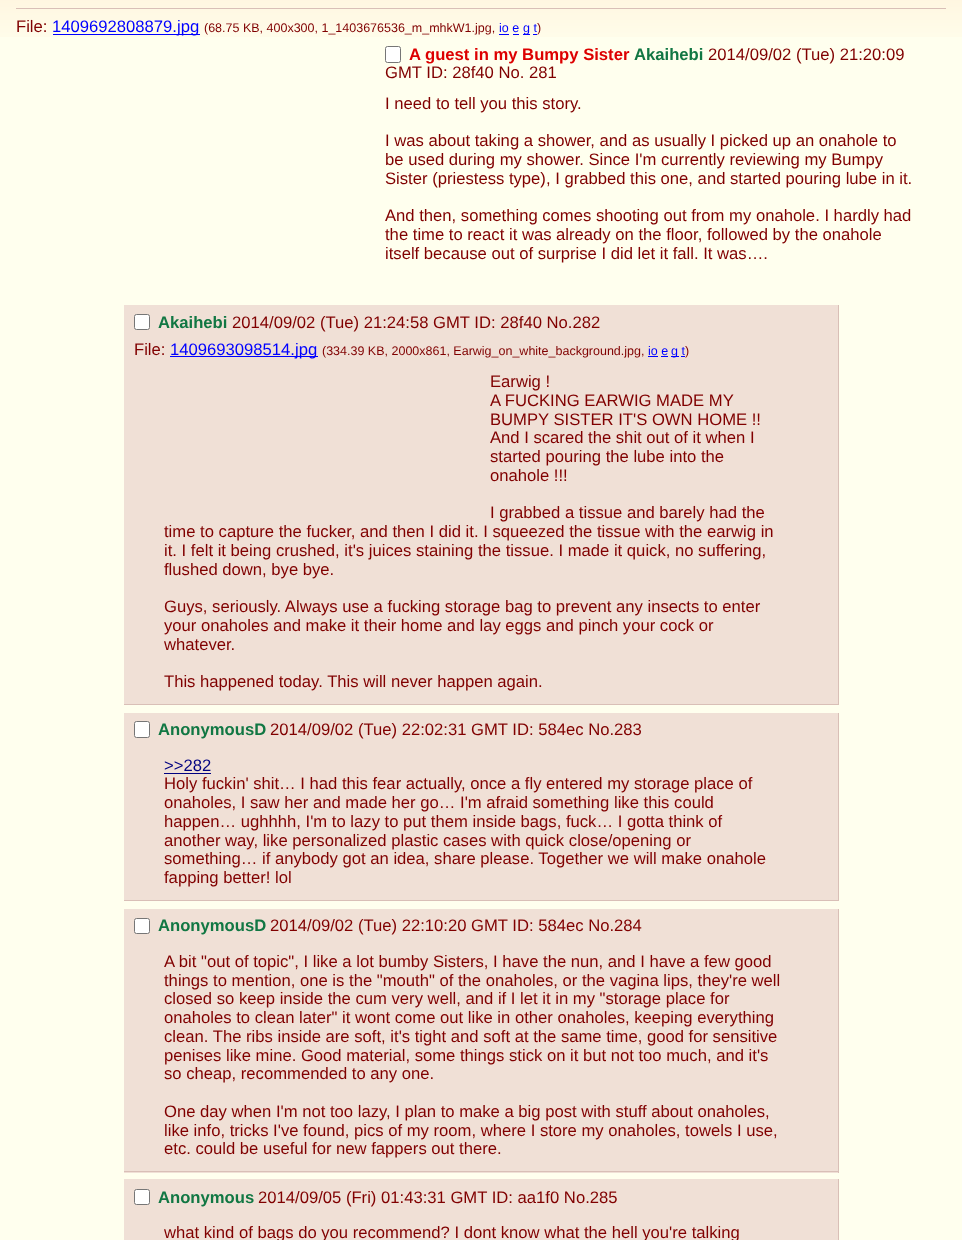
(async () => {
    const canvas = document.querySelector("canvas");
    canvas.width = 962;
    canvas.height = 1240;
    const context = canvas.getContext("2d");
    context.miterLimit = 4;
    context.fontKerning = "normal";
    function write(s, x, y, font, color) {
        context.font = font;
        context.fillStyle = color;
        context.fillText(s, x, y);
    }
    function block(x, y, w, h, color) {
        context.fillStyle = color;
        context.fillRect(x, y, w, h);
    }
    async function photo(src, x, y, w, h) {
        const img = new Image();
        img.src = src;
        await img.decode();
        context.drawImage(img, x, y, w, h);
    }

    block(0, 0, 962, 1240, "rgb(255, 255, 238)");
    await photo("media/1.png", 0, 0, 962, 37);
    block(16, 8, 930, 1, "rgb(217, 191, 183)");
    write("File:", 16, 32, "16.65px Liberation Sans", "rgb(128, 0, 0)");
    block(53, 34, 147, 1, "rgb(0, 0, 255)");
    write("1409692808879.jpg", 52, 32, "16.65px Liberation Sans", "rgb(0, 0, 255)");
    write("(68.75 KB, 400x300, 1_1403676536_m_mhkW1.jpg,", 204, 32, "12.5px Liberation Sans", "rgb(128, 0, 0)");
    write("io e", 499, 32, "12.5px Liberation Sans", "rgb(0, 0, 255)");
    block(499, 34, 10, 1, "rgb(0, 0, 255)");
    block(513, 34, 6, 1, "rgb(0, 0, 255)");
    block(523, 34, 7, 1, "rgb(0, 0, 255)");
    write("g t", 523, 32, "12.5px Liberation Sans", "rgb(0, 0, 255)");
    block(533, 34, 4, 1, "rgb(0, 0, 255)");
    write(")", 537, 32, "12.5px Liberation Sans", "rgb(128, 0, 0)");
    context.fillStyle = "rgb(255, 255, 255)";
    context.beginPath();
    context.roundRect(385.5, 46.5, 15, 16, 2);
    context.fill();
    context.strokeStyle = "rgb(118, 118, 118)";
    context.stroke();
    write("A guest in my Bumpy Sister", 409, 60, "bold 16.65px Liberation Sans", "rgb(221, 0, 0)");
    write("Akaihebi", 634, 60, "bold 16.65px Liberation Sans", "rgb(17, 119, 67)");
    write("2014/09/02 (Tue) 21:20:09", 708, 60, "16.65px Liberation Sans", "rgb(128, 0, 0)");
    write("GMT ID: 28f40 No. 281", 385, 78, "16.65px Liberation Sans", "rgb(128, 0, 0)");
    write("I need to tell you this story.", 385, 109, "16.65px Liberation Sans", "rgb(128, 0, 0)");
    write("I was about taking a shower, and as usually I picked up an onahole to", 385, 146, "16.65px Liberation Sans", "rgb(128, 0, 0)");
    write("be used during my shower. Since I'm currently reviewing my Bumpy", 385, 165, "16.65px Liberation Sans", "rgb(128, 0, 0)");
    write("Sister (priestess type), I grabbed this one, and started pouring lube in it.", 385, 184, "16.65px Liberation Sans", "rgb(128, 0, 0)");
    write("And then, something comes shooting out from my onahole. I hardly had", 385, 221, "16.65px Liberation Sans", "rgb(128, 0, 0)");
    write("the time to react it was already on the floor, followed by the onahole", 385, 240, "16.65px Liberation Sans", "rgb(128, 0, 0)");
    write("itself because out of surprise I did let it fall. It was….", 385, 259, "16.65px Liberation Sans", "rgb(128, 0, 0)");
    block(124, 305, 714, 399, "rgb(240, 224, 214)");
    block(838, 305, 1, 400, "rgb(217, 191, 183)");
    block(124, 704, 715, 1, "rgb(217, 191, 183)");
    context.fillStyle = "rgb(255, 255, 255)";
    context.beginPath();
    context.roundRect(134.5, 314.5, 15, 15, 2);
    context.fill();
    context.stroke();
    write("Akaihebi", 158, 328, "bold 16.65px Liberation Sans", "rgb(17, 119, 67)");
    write("2014/09/02 (Tue) 21:24:58 GMT ID: 28f40 No.282", 232, 328, "16.65px Liberation Sans", "rgb(128, 0, 0)");
    write("File:", 134, 355, "16.65px Liberation Sans", "rgb(128, 0, 0)");
    block(170, 356, 148, 1, "rgb(0, 0, 255)");
    write("1409693098514.jpg", 170, 355, "16.65px Liberation Sans", "rgb(0, 0, 255)");
    write("(334.39 KB, 2000x861, Earwig_on_white_background.jpg,", 322, 355, "12.5px Liberation Sans", "rgb(128, 0, 0)");
    write("io e", 648, 355, "12.5px Liberation Sans", "rgb(0, 0, 255)");
    block(648, 356, 10, 1, "rgb(0, 0, 255)");
    block(661, 356, 7, 1, "rgb(0, 0, 255)");
    block(671, 356, 8, 1, "rgb(0, 0, 255)");
    write("g t", 671, 355, "12.5px Liberation Sans", "rgb(0, 0, 255)");
    block(681, 356, 4, 1, "rgb(0, 0, 255)");
    write(")", 685, 355, "12.5px Liberation Sans", "rgb(128, 0, 0)");
    write("Earwig !", 490, 387, "16.65px Liberation Sans", "rgb(128, 0, 0)");
    write("A FUCKING EARWIG MADE MY", 490, 406, "16.65px Liberation Sans", "rgb(128, 0, 0)");
    write("BUMPY SISTER IT'S OWN HOME !!", 490, 425, "16.65px Liberation Sans", "rgb(128, 0, 0)");
    write("And I scared the shit out of it when I", 490, 443, "16.65px Liberation Sans", "rgb(128, 0, 0)");
    write("started pouring the lube into the", 490, 462, "16.65px Liberation Sans", "rgb(128, 0, 0)");
    write("onahole !!!", 490, 481, "16.65px Liberation Sans", "rgb(128, 0, 0)");
    write("I grabbed a tissue and barely had the", 490, 518, "16.65px Liberation Sans", "rgb(128, 0, 0)");
    write("time to capture the fucker, and then I did it. I squeezed the tissue with the earwig in", 164, 537, "16.65px Liberation Sans", "rgb(128, 0, 0)");
    write("it. I felt it being crushed, it's juices staining the tissue. I made it quick, no suffering,", 164, 556, "16.65px Liberation Sans", "rgb(128, 0, 0)");
    write("flushed down, bye bye.", 164, 575, "16.65px Liberation Sans", "rgb(128, 0, 0)");
    write("Guys, seriously. Always use a fucking storage bag to prevent any insects to enter", 164, 612, "16.65px Liberation Sans", "rgb(128, 0, 0)");
    write("your onaholes and make it their home and lay eggs and pinch your cock or", 164, 631, "16.65px Liberation Sans", "rgb(128, 0, 0)");
    write("whatever.", 164, 650, "16.65px Liberation Sans", "rgb(128, 0, 0)");
    write("This happened today. This will never happen again.", 164, 687, "16.65px Liberation Sans", "rgb(128, 0, 0)");
    block(124, 713, 714, 187, "rgb(240, 224, 214)");
    block(838, 713, 1, 188, "rgb(217, 191, 183)");
    block(124, 900, 715, 1, "rgb(217, 191, 183)");
    context.fillStyle = "rgb(255, 255, 255)";
    context.beginPath();
    context.roundRect(134.5, 721.5, 15, 16, 2);
    context.fill();
    context.stroke();
    write("AnonymousD", 158, 735, "bold 16.65px Liberation Sans", "rgb(17, 119, 67)");
    write("2014/09/02 (Tue) 22:02:31 GMT ID: 584ec No.283", 270, 735, "16.65px Liberation Sans", "rgb(128, 0, 0)");
    write(">>282", 164, 771, "16.65px Liberation Sans", "rgb(0, 0, 128)");
    block(164, 773, 47, 1, "rgb(0, 0, 128)");
    write("Holy fuckin' shit… I had this fear actually, once a fly entered my storage place of", 164, 789, "16.65px Liberation Sans", "rgb(128, 0, 0)");
    write("onaholes, I saw her and made her go… I'm afraid something like this could", 164, 808, "16.65px Liberation Sans", "rgb(128, 0, 0)");
    write("happen… ughhhh, I'm to lazy to put them inside bags, fuck… I gotta think of", 164, 827, "16.65px Liberation Sans", "rgb(128, 0, 0)");
    write("another way, like personalized plastic cases with quick close/opening or", 164, 846, "16.65px Liberation Sans", "rgb(128, 0, 0)");
    write("something… if anybody got an idea, share please. Together we will make onahole", 164, 864, "16.65px Liberation Sans", "rgb(128, 0, 0)");
    write("fapping better! lol", 164, 883, "16.65px Liberation Sans", "rgb(128, 0, 0)");
    block(124, 909, 714, 264, "rgb(240, 224, 214)");
    block(838, 909, 1, 264, "rgb(217, 191, 183)");
    block(124, 1171, 715, 1, "rgb(217, 191, 183)");
    context.fillStyle = "rgb(255, 255, 255)";
    context.beginPath();
    context.roundRect(134.5, 918.5, 15, 15, 2);
    context.fill();
    context.stroke();
    write("AnonymousD", 158, 931, "bold 16.65px Liberation Sans", "rgb(17, 119, 67)");
    write("2014/09/02 (Tue) 22:10:20 GMT ID: 584ec No.284", 270, 931, "16.65px Liberation Sans", "rgb(128, 0, 0)");
    write("A bit \"out of topic\", I like a lot bumby Sisters, I have the nun, and I have a few good", 164, 967, "16.65px Liberation Sans", "rgb(128, 0, 0)");
    write("things to mention, one is the \"mouth\" of the onaholes, or the vagina lips, they're well", 164, 986, "16.65px Liberation Sans", "rgb(128, 0, 0)");
    write("closed so keep inside the cum very well, and if I let it in my \"storage place for", 164, 1004, "16.65px Liberation Sans", "rgb(128, 0, 0)");
    write("onaholes to clean later\" it wont come out like in other onaholes, keeping everything", 164, 1023, "16.65px Liberation Sans", "rgb(128, 0, 0)");
    write("clean. The ribs inside are soft, it's tight and soft at the same time, good for sensitive", 164, 1042, "16.65px Liberation Sans", "rgb(128, 0, 0)");
    write("penises like mine. Good material, some things stick on it but not too much, and it's", 164, 1061, "16.65px Liberation Sans", "rgb(128, 0, 0)");
    write("so cheap, recommended to any one.", 164, 1079, "16.65px Liberation Sans", "rgb(128, 0, 0)");
    write("One day when I'm not too lazy, I plan to make a big post with stuff about onaholes,", 164, 1117, "16.65px Liberation Sans", "rgb(128, 0, 0)");
    write("like info, tricks I've found, pics of my room, where I store my onaholes, towels I use,", 164, 1136, "16.65px Liberation Sans", "rgb(128, 0, 0)");
    write("etc. could be useful for new fappers out there.", 164, 1154, "16.65px Liberation Sans", "rgb(128, 0, 0)");
    block(124, 1179, 714, 61, "rgb(240, 224, 214)");
    block(838, 1179, 1, 61, "rgb(217, 191, 183)");
    context.fillStyle = "rgb(255, 255, 255)";
    context.beginPath();
    context.roundRect(134.5, 1189.5, 15, 15, 2);
    context.fill();
    context.stroke();
    write("Anonymous", 158, 1203, "bold 16.65px Liberation Sans", "rgb(17, 119, 67)");
    write("2014/09/05 (Fri) 01:43:31 GMT ID: aa1f0 No.285", 258, 1203, "16.65px Liberation Sans", "rgb(128, 0, 0)");
    write("what kind of bags do you recommend? I dont know what the hell you're talking", 164, 1238, "16.65px Liberation Sans", "rgb(128, 0, 0)");
})();
